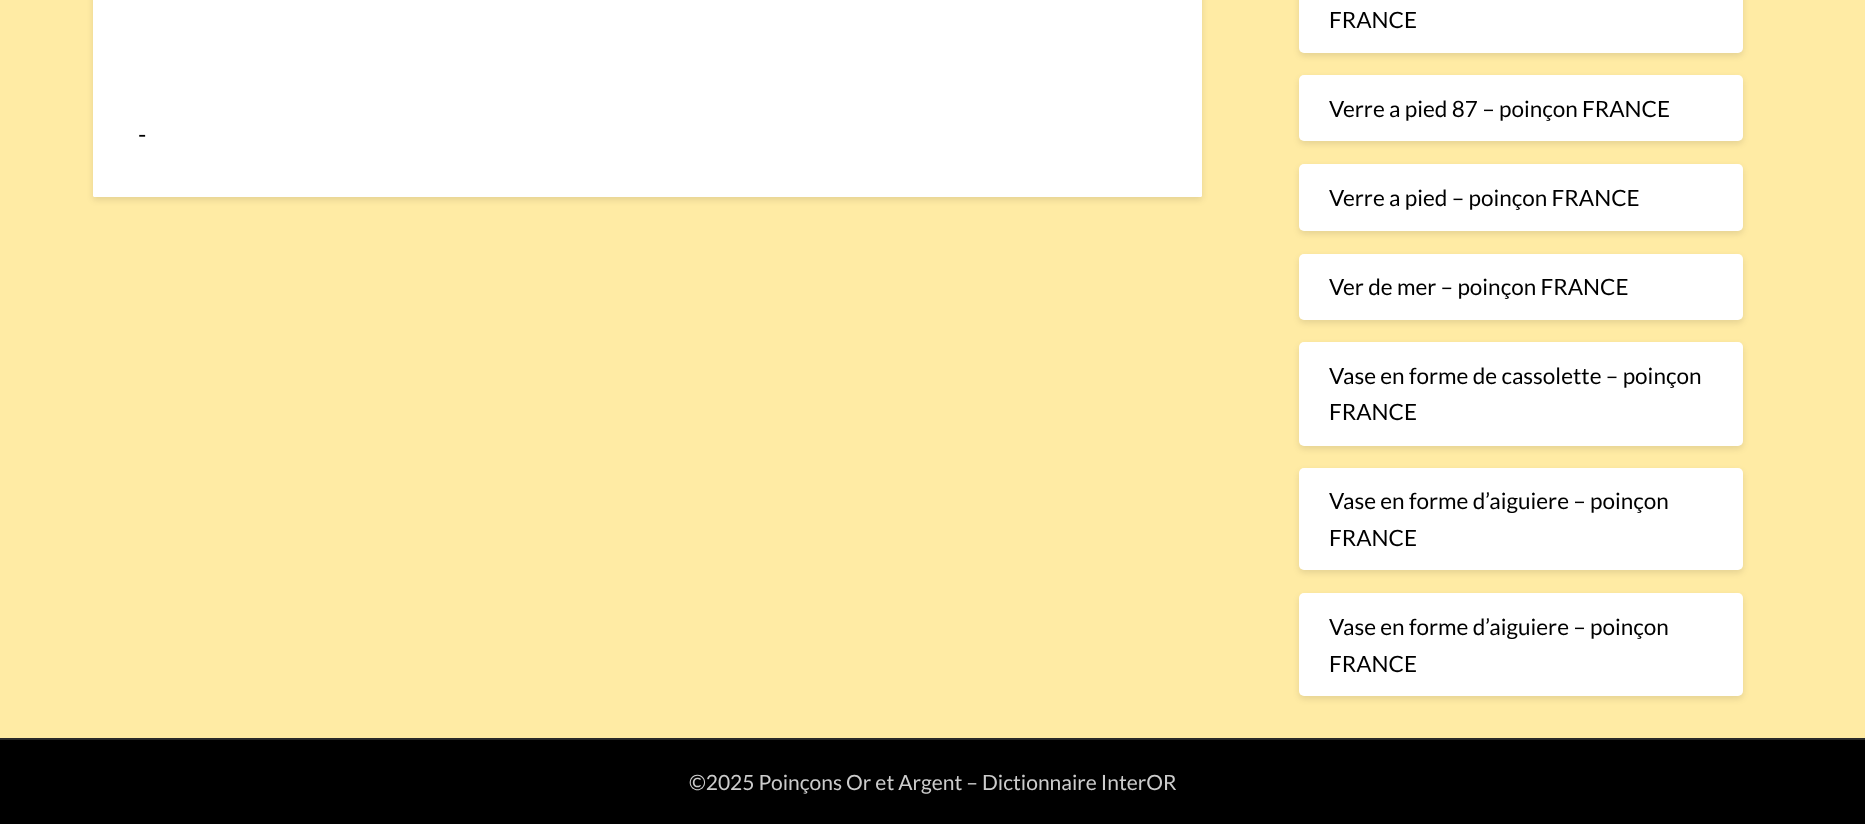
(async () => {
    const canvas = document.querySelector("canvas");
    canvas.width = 1865;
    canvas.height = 824;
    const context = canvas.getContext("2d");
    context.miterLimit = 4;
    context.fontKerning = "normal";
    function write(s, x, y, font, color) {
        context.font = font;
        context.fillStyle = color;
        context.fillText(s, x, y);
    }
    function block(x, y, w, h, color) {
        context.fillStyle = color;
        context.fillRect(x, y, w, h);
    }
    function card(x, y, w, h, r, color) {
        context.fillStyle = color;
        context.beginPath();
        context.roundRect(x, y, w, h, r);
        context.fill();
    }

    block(0, 0, 1865, 824, "rgb(255, 235, 164)");
    context.fillStyle = "rgba(0, 0, 0, 0.1)";
    context.filter = "blur(3px)";
    context.beginPath();
    context.roundRect(93, -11, 1109, 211, 1.5);
    context.fill();
    context.filter = "none";
    card(93, -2, 1109, 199, 1.5, "rgb(255, 255, 255)");
    write("-", 138, 143, "24px Lato", "rgb(0, 0, 0)");
    context.fillStyle = "rgba(0, 0, 0, 0.1)";
    context.filter = "blur(3px)";
    context.beginPath();
    context.roundRect(1299, -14, 444, 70, 5);
    context.fill();
    context.filter = "none";
    card(1299, -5, 444, 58, 5, "rgb(255, 255, 255)");
    write("FRANCE", 1329, 28, "22.5px Lato", "rgb(0, 0, 0)");
    context.fillStyle = "rgba(0, 0, 0, 0.1)";
    context.filter = "blur(3px)";
    context.beginPath();
    context.roundRect(1299, 78, 444, 66, 5);
    context.fill();
    context.filter = "none";
    card(1299, 75, 444, 66, 5, "rgb(255, 255, 255)");
    write("Verre a pied 87 – poinçon FRANCE", 1329, 117, "22.5px Lato", "rgb(0, 0, 0)");
    context.fillStyle = "rgba(0, 0, 0, 0.1)";
    context.filter = "blur(3px)";
    context.beginPath();
    context.roundRect(1299, 167, 444, 67, 5);
    context.fill();
    context.filter = "none";
    card(1299, 164, 444, 67, 5, "rgb(255, 255, 255)");
    write("Verre a pied – poinçon FRANCE", 1329, 206, "22.5px Lato", "rgb(0, 0, 0)");
    context.fillStyle = "rgba(0, 0, 0, 0.1)";
    context.filter = "blur(3px)";
    context.beginPath();
    context.roundRect(1299, 257, 444, 66, 5);
    context.fill();
    context.filter = "none";
    card(1299, 254, 444, 66, 5, "rgb(255, 255, 255)");
    write("Ver de mer – poinçon FRANCE", 1329, 295, "22.5px Lato", "rgb(0, 0, 0)");
    context.fillStyle = "rgba(0, 0, 0, 0.1)";
    context.filter = "blur(3px)";
    context.beginPath();
    context.roundRect(1299, 345, 444, 104, 5);
    context.fill();
    context.filter = "none";
    card(1299, 342, 444, 104, 5, "rgb(255, 255, 255)");
    write("Vase en forme de cassolette – poinçon", 1329, 384, "22.5px Lato", "rgb(0, 0, 0)");
    write("FRANCE", 1329, 420, "22.5px Lato", "rgb(0, 0, 0)");
    context.fillStyle = "rgba(0, 0, 0, 0.1)";
    context.filter = "blur(3px)";
    context.beginPath();
    context.roundRect(1299, 471, 444, 102, 5);
    context.fill();
    context.filter = "none";
    card(1299, 468, 444, 102, 5, "rgb(255, 255, 255)");
    write("Vase en forme d’aiguiere – poinçon", 1329, 509, "22.5px Lato", "rgb(0, 0, 0)");
    write("FRANCE", 1329, 546, "22.5px Lato", "rgb(0, 0, 0)");
    context.fillStyle = "rgba(0, 0, 0, 0.1)";
    context.filter = "blur(3px)";
    context.beginPath();
    context.roundRect(1299, 596, 444, 103, 5);
    context.fill();
    context.filter = "none";
    card(1299, 593, 444, 103, 5, "rgb(255, 255, 255)");
    write("Vase en forme d’aiguiere – poinçon", 1329, 635, "22.5px Lato", "rgb(0, 0, 0)");
    write("FRANCE", 1329, 672, "22.5px Lato", "rgb(0, 0, 0)");
    block(0, 740, 1865, 84, "rgb(0, 0, 0)");
    block(0, 738, 1865, 2, "rgb(41, 41, 41)");
    write("©2025 Poinçons Or et Argent – Dictionnaire InterOR", 689, 790, "21px Lato", "rgb(204, 204, 204)");
})();
